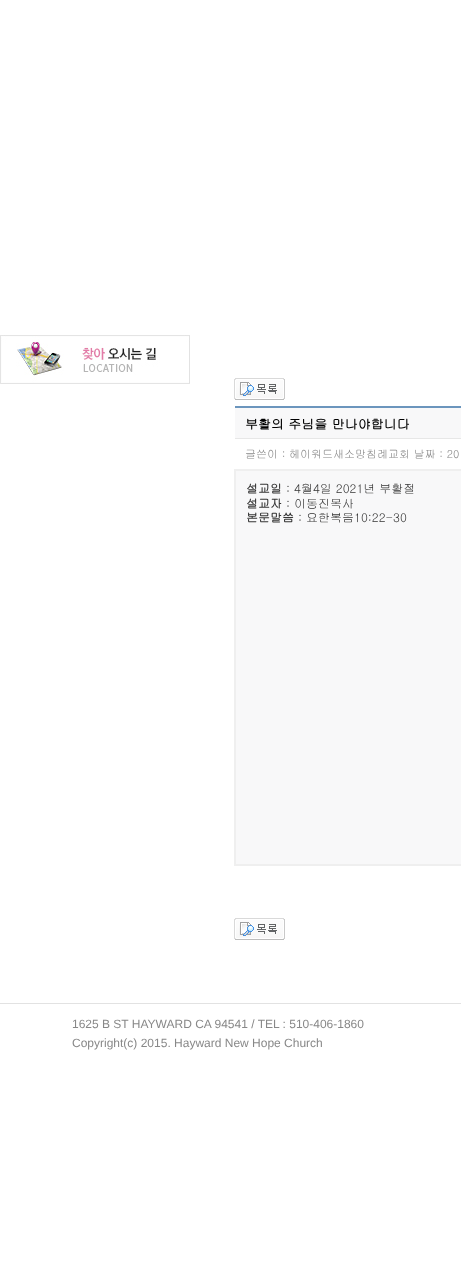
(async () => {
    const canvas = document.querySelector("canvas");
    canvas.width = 461;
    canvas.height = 1267;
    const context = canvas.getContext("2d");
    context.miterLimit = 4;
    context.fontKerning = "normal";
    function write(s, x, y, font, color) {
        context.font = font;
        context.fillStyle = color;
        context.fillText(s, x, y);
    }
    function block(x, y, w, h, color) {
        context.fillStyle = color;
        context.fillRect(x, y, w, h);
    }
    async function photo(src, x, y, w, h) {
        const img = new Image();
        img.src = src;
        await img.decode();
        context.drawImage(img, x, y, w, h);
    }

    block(0, 0, 461, 1267, "rgb(255, 255, 255)");
    await photo("media/1.png", 0, 335, 190, 49);
    await photo("media/2.png", 234, 378, 51, 22);
    block(235, 406, 226, 2, "rgb(107, 149, 189)");
    block(235, 408, 226, 30, "rgb(248, 248, 249)");
    write("부활의 주님을 만나야합니다", 245, 429, "bold 13px Gulim", "rgb(0, 0, 0)");
    block(235, 438, 226, 1, "rgb(231, 231, 231)");
    write("글쓴이 : 헤이워드새소망침례교회 날짜 : 20", 245, 458, "11px Gulim", "rgb(136, 136, 136)");
    block(236, 471, 225, 393, "rgb(248, 248, 249)");
    block(234, 469, 227, 2, "rgb(239, 239, 239)");
    block(234, 864, 227, 2, "rgb(239, 239, 239)");
    block(234, 469, 2, 397, "rgb(239, 239, 239)");
    write("설교일", 246, 493, "bold 12px Gulim", "rgb(53, 53, 53)");
    write(": 4월4일 2021년 부활절", 286, 493, "12px Gulim", "rgb(53, 53, 53)");
    write("설교자", 246, 508, "bold 12px Gulim", "rgb(53, 53, 53)");
    write(": 이동진목사", 286, 508, "12px Gulim", "rgb(53, 53, 53)");
    write("본문말씀", 246, 522, "bold 12px Gulim", "rgb(53, 53, 53)");
    write(": 요한복음10:22-30", 298, 522, "12px Gulim", "rgb(53, 53, 53)");
    await photo("media/2.png", 234, 918, 51, 22);
    block(0, 1003, 461, 1, "rgb(226, 226, 226)");
    write("1625 B ST HAYWARD CA 94541 / TEL : 510-406-1860", 72, 1028, "12px Liberation Sans", "rgb(136, 136, 136)");
    write("Copyright(c) 2015. Hayward New Hope Church", 72, 1047, "12px Liberation Sans", "rgb(136, 136, 136)");
})();
